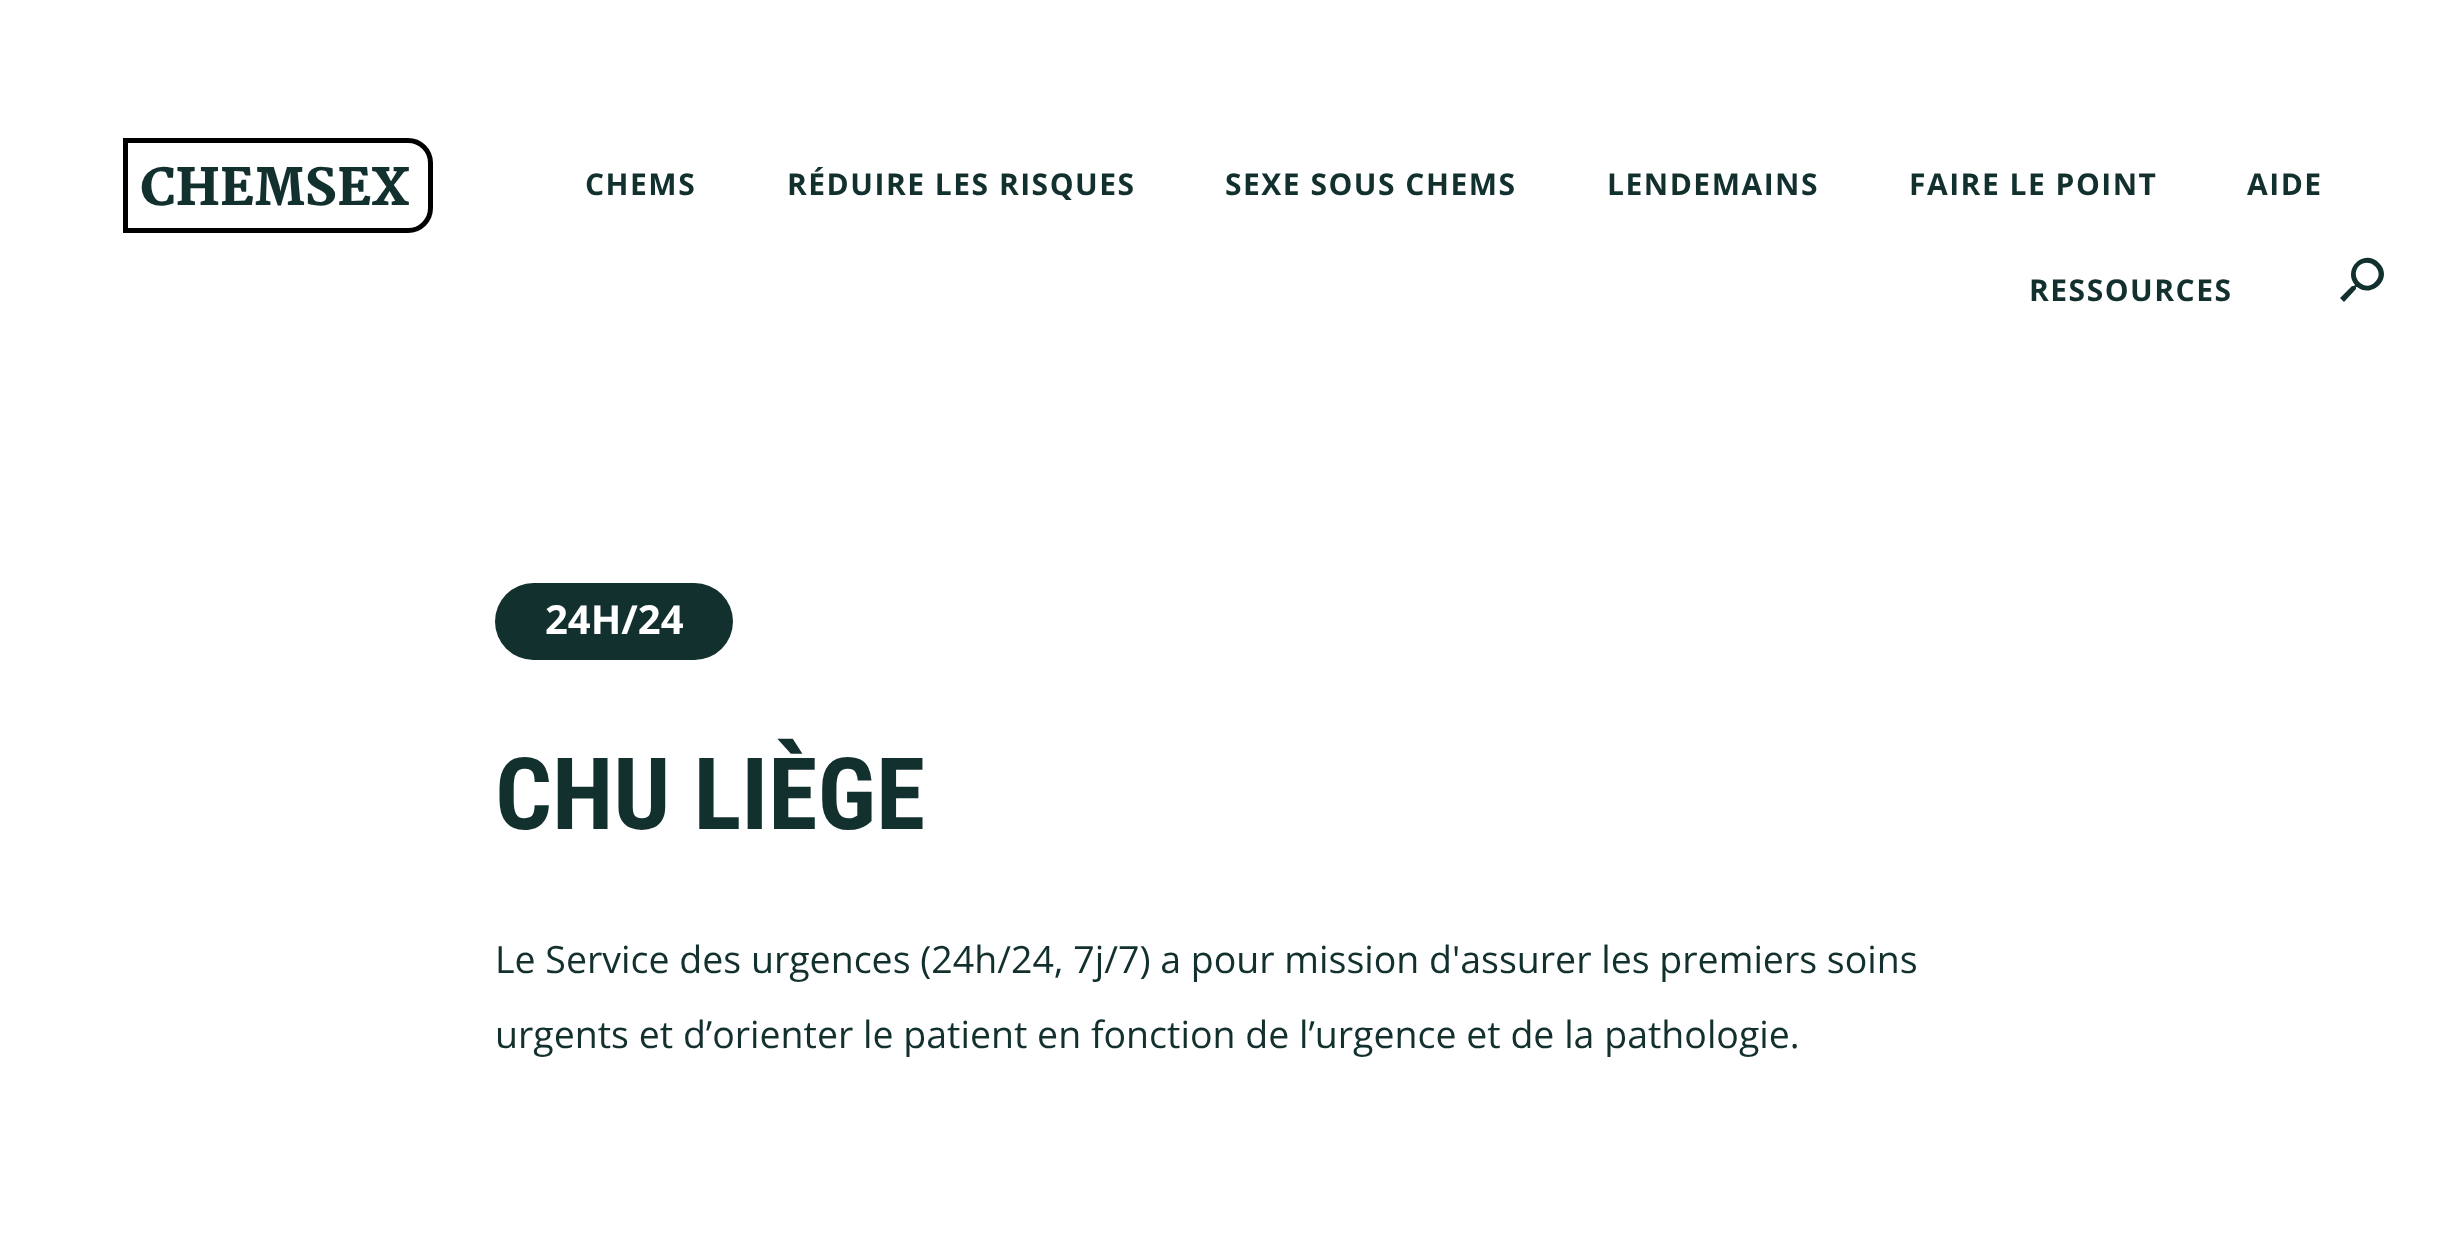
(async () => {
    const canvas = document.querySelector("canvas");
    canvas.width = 2443;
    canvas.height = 1260;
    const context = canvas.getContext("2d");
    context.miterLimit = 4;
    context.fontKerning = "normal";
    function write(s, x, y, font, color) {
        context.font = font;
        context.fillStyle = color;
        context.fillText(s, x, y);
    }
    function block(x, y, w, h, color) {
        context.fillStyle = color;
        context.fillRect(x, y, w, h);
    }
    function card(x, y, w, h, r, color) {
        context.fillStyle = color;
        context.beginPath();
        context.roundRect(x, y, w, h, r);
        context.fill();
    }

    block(0, 0, 2443, 1260, "rgb(255, 255, 255)");
    context.beginPath();
    context.roundRect(125.5, 140.5, 305, 90, [0, 22.5, 22.5, 0]);
    context.strokeStyle = "rgb(0, 0, 0)";
    context.lineWidth = 5;
    context.stroke();
    write("CHEMSEX", 140, 205, "900 50px Martel", "rgb(18, 48, 46)");
    context.letterSpacing = "1.5px";
    write("CHEMS", 585, 195, "bold 30px Open Sans", "rgb(18, 48, 46)");
    write("RÉDUIRE LES RISQUES", 787, 195, "bold 30px Open Sans", "rgb(18, 48, 46)");
    write("SEXE SOUS CHEMS", 1225, 195, "bold 30px Open Sans", "rgb(18, 48, 46)");
    write("LENDEMAINS", 1607, 195, "bold 30px Open Sans", "rgb(18, 48, 46)");
    write("FAIRE LE POINT", 1909, 195, "bold 30px Open Sans", "rgb(18, 48, 46)");
    write("AIDE", 2247, 195, "bold 30px Open Sans", "rgb(18, 48, 46)");
    write("RESSOURCES", 2029, 301, "bold 30px Open Sans", "rgb(18, 48, 46)");
    context.beginPath();
    context.moveTo(2359, 266);
    context.bezierCurveTo(2349, 277, 2365, 293, 2375, 282);
    context.bezierCurveTo(2386, 272, 2370, 256, 2359, 266);
    context.closePath();
    context.moveTo(2356, 289);
    context.lineTo(2344, 302);
    context.lineTo(2340, 298);
    context.lineTo(2352, 286);
    context.lineTo(2354, 286);
    context.lineTo(2355, 285);
    context.bezierCurveTo(2342, 269, 2364, 248, 2379, 263);
    context.bezierCurveTo(2394, 278, 2372, 299, 2357, 287);
    context.lineTo(2356, 287);
    context.closePath();
    context.fill();
    card(495, 583, 238, 77, 38.5, "rgb(18, 48, 46)");
    context.letterSpacing = "0px";
    write("24H/24", 545, 634, "bold 40px Open Sans", "rgb(255, 255, 255)");
    write("CHU LIÈGE", 495, 829, "bold 100px Roboto Condensed", "rgb(18, 48, 46)");
    write("Le Service des urgences (24h/24, 7j/7) a pour mission d'assurer les premiers soins", 495, 973, "37.5px Open Sans", "rgb(18, 48, 46)");
    write("urgents et d’orienter le patient en fonction de l’urgence et de la pathologie.", 495, 1048, "37.5px Open Sans", "rgb(18, 48, 46)");
})();
